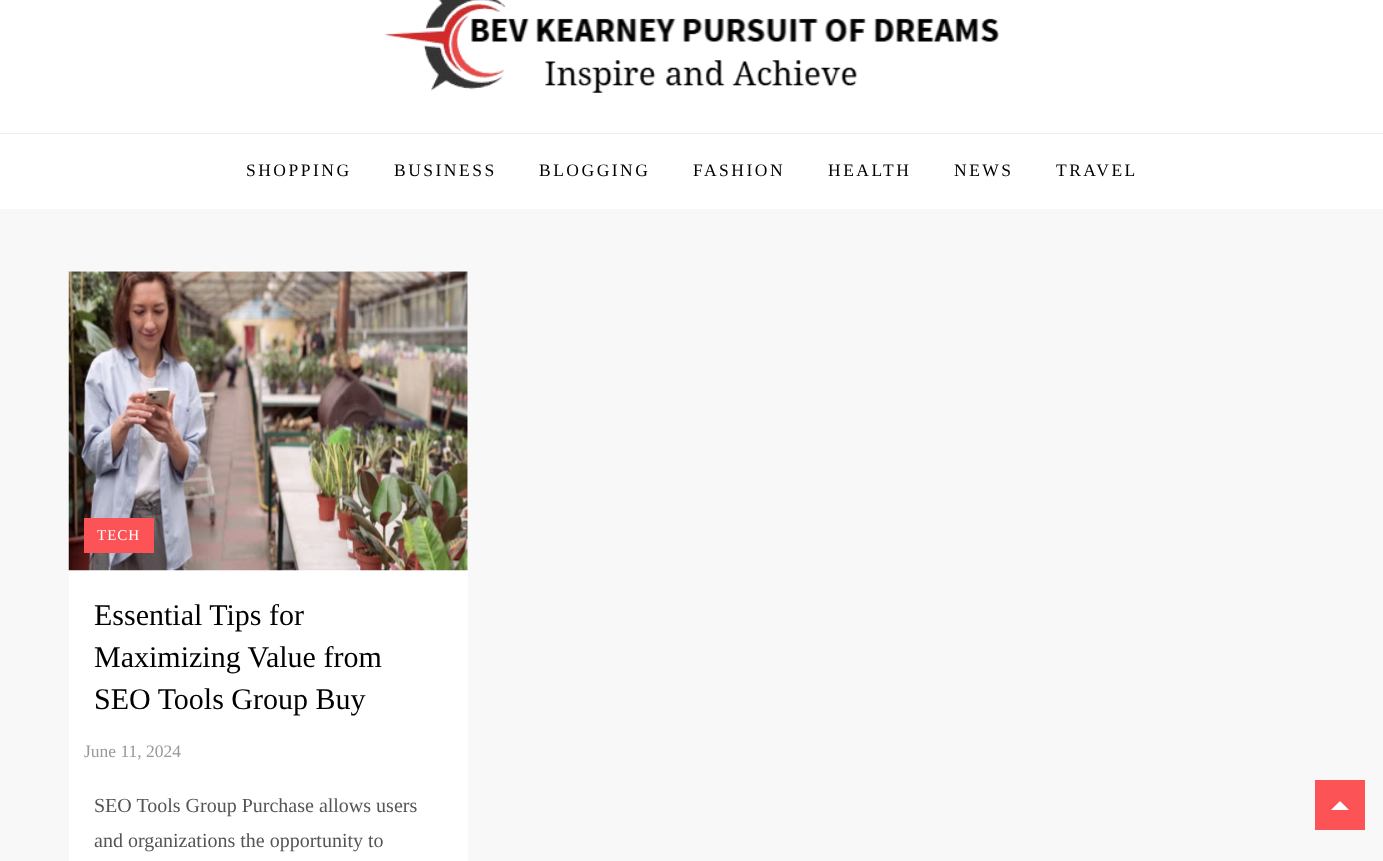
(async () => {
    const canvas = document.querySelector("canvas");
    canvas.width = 1383;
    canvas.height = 861;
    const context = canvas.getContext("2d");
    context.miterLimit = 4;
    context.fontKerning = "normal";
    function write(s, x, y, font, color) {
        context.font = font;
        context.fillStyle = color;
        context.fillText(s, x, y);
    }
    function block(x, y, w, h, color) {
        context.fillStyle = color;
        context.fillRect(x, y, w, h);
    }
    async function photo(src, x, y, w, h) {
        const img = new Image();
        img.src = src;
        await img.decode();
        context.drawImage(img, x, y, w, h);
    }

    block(0, 0, 1383, 861, "rgb(248, 248, 248)");
    block(0, 0, 1383, 209, "rgb(255, 255, 255)");
    await photo("media/1.png", 385, 0, 614, 93);
    block(0, 133, 1383, 1, "rgb(238, 238, 238)");
    context.letterSpacing = "2.5px";
    write("SHOPPING", 246, 176, "17.5px Liberation Serif", "rgb(0, 0, 0)");
    write("BUSINESS", 394, 176, "17.5px Liberation Serif", "rgb(0, 0, 0)");
    write("BLOGGING", 539, 176, "17.5px Liberation Serif", "rgb(0, 0, 0)");
    write("FASHION", 693, 176, "17.5px Liberation Serif", "rgb(0, 0, 0)");
    write("HEALTH", 828, 176, "17.5px Liberation Serif", "rgb(0, 0, 0)");
    write("NEWS", 954, 176, "17.5px Liberation Serif", "rgb(0, 0, 0)");
    write("TRAVEL", 1056, 176, "17.5px Liberation Serif", "rgb(0, 0, 0)");
    block(69, 271, 399, 590, "rgb(255, 255, 255)");
    await photo("media/2.png", 68, 271, 400, 300);
    block(84, 518, 70, 35, "rgb(252, 83, 86)");
    context.letterSpacing = "1px";
    write("TECH", 97, 540, "15px Liberation Serif", "rgb(255, 255, 255)");
    context.letterSpacing = "0px";
    write("Essential Tips for", 94, 625, "30px Liberation Serif", "rgb(0, 0, 0)");
    write("Maximizing Value from", 94, 667, "30px Liberation Serif", "rgb(0, 0, 0)");
    write("SEO Tools Group Buy", 94, 709, "30px Liberation Serif", "rgb(0, 0, 0)");
    write("June 11, 2024", 84, 757, "17.5px Liberation Serif", "rgb(153, 153, 153)");
    write("SEO Tools Group Purchase allows users", 94, 812, "20px Liberation Serif", "rgb(85, 85, 85)");
    write("and organizations the opportunity to", 94, 847, "20px Liberation Serif", "rgb(85, 85, 85)");
    block(1315, 780, 50, 50, "rgb(252, 83, 86)");
    context.fillStyle = "rgb(255, 255, 255)";
    context.beginPath();
    context.moveTo(1349, 810);
    context.lineTo(1331, 810);
    context.lineTo(1340, 801);
    context.closePath();
    context.fill();
})();
